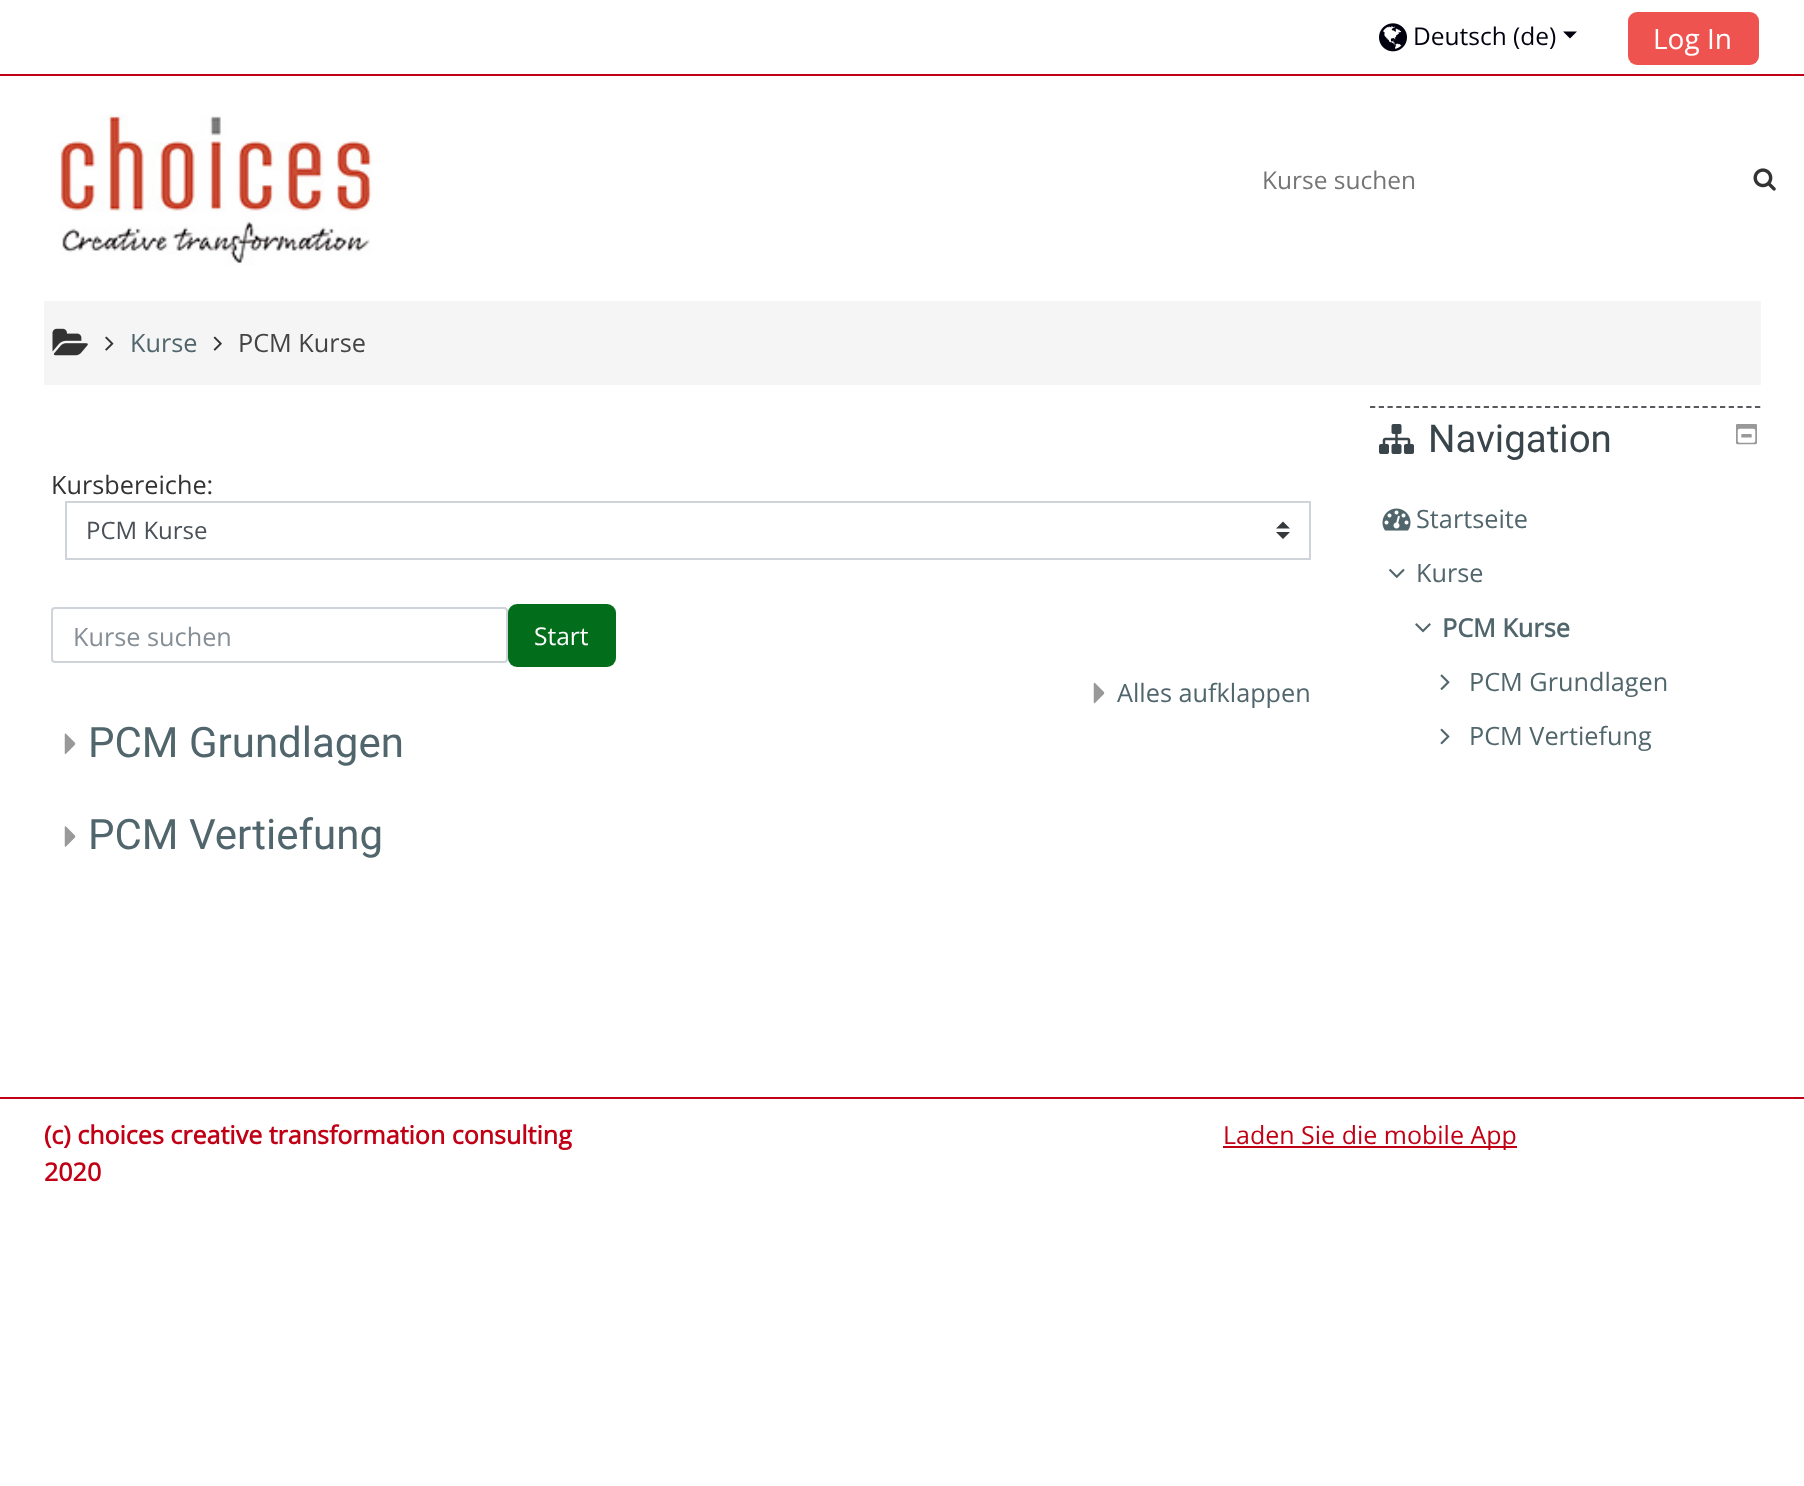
(async () => {
    const canvas = document.querySelector("canvas");
    canvas.width = 1804;
    canvas.height = 1486;
    const context = canvas.getContext("2d");
    context.miterLimit = 4;
    context.fontKerning = "normal";
    function write(s, x, y, font, color) {
        context.font = font;
        context.fillStyle = color;
        context.fillText(s, x, y);
    }
    function block(x, y, w, h, color) {
        context.fillStyle = color;
        context.fillRect(x, y, w, h);
    }
    function card(x, y, w, h, r, color) {
        context.fillStyle = color;
        context.beginPath();
        context.roundRect(x, y, w, h, r);
        context.fill();
    }
    async function photo(src, x, y, w, h) {
        const img = new Image();
        img.src = src;
        await img.decode();
        context.drawImage(img, x, y, w, h);
    }

    block(0, 0, 1804, 1486, "rgb(255, 255, 255)");
    block(0, 74, 1804, 2, "rgb(193, 0, 22)");
    await photo("media/1.png", 1379, 23, 28, 29);
    write("Deutsch (de)", 1413, 45, "24.5px Open Sans", "rgb(0, 0, 15)");
    context.beginPath();
    context.moveTo(1563, 31.5);
    context.lineTo(1577, 31.5);
    context.lineTo(1570, 38.5);
    context.closePath();
    context.fill();
    card(1628, 12, 131, 53, 9, "rgb(239, 83, 80)");
    write("Log In", 1653, 49, "28px Open Sans", "rgb(255, 255, 255)");
    await photo("media/2.png", 58, 114, 315, 152);
    write("Kurse suchen", 1262, 189, "24.5px Open Sans", "rgb(117, 117, 117)");
    await photo("media/3.png", 1753, 168, 23, 23);
    block(44, 301, 1717, 84, "rgb(245, 245, 245)");
    await photo("media/4.png", 52, 328, 36, 28);
    await photo("media/5.png", 105, 336, 9, 15);
    write("Kurse", 130, 352, "25.25px Open Sans", "rgb(81, 102, 108)");
    await photo("media/6.png", 213, 336, 9, 15);
    write("PCM Kurse", 238, 352, "25.25px Open Sans", "rgb(68, 68, 68)");
    write("Kursbereiche:", 51, 494, "25.25px Open Sans", "rgb(51, 51, 51)");
    context.fillStyle = "rgb(55, 58, 60)";
    context.beginPath();
    context.moveTo(1283, 521.5);
    context.lineTo(1276, 528.5);
    context.lineTo(1290, 528.5);
    context.closePath();
    context.moveTo(1283, 539);
    context.lineTo(1276, 532);
    context.lineTo(1290, 532);
    context.closePath();
    context.fill();
    context.strokeStyle = "rgb(206, 212, 218)";
    context.lineWidth = 2;
    context.strokeRect(66, 502, 1244, 57);
    write("PCM Kurse", 86, 539, "24px Open Sans", "rgb(73, 80, 87)");
    context.beginPath();
    context.roundRect(52, 608, 455, 54, 3);
    context.stroke();
    write("Kurse suchen", 73, 646, "25.25px Open Sans", "rgb(134, 142, 150)");
    card(508, 604, 108, 63, 9, "rgb(2, 110, 28)");
    write("Start", 534, 645, "24.5px Open Sans", "rgb(255, 255, 255)");
    await photo("media/7.png", 1093, 682, 12, 22);
    write("Alles aufklappen", 1117, 702, "25.25px Open Sans", "rgb(81, 102, 108)");
    await photo("media/8.png", 64, 733, 12, 21);
    write("PCM Grundlagen", 88, 757, "42px Roboto", "rgb(81, 102, 108)");
    await photo("media/9.png", 64, 826, 12, 21);
    write("PCM Vertiefung", 88, 849, "42px Roboto", "rgb(81, 102, 108)");
    context.beginPath();
    context.moveTo(1370, 407);
    context.lineTo(1760.5, 407);
    context.strokeStyle = "rgb(89, 88, 93)";
    context.lineWidth = 1.8;
    context.setLineDash([5.25, 3.5]);
    context.stroke();
    await photo("media/10.png", 1379, 424, 35, 30);
    write("Navigation", 1428, 452, "38.5px Roboto", "rgb(58, 69, 75)");
    await photo("media/11.png", 1736, 424, 21, 21);
    await photo("media/12.png", 1382, 508, 29, 23);
    write("Startseite", 1416, 528, "25.25px Open Sans", "rgb(81, 102, 108)");
    await photo("media/13.png", 1389, 569, 16, 9);
    write("Kurse", 1416, 582, "25.25px Open Sans", "rgb(81, 102, 108)");
    await photo("media/14.png", 1415, 623, 16, 10);
    write("PCM Kurse", 1442, 637, "bold 25.25px Open Sans", "rgb(81, 102, 108)");
    await photo("media/15.png", 1440, 674, 10, 16);
    write("PCM Grundlagen", 1469, 691, "25.25px Open Sans", "rgb(81, 102, 108)");
    await photo("media/16.png", 1440, 728, 10, 17);
    write("PCM Vertiefung", 1469, 745, "25.25px Open Sans", "rgb(81, 102, 108)");
    block(0, 1097, 1804, 2, "rgb(193, 0, 22)");
    write("(c) choices creative transformation consulting", 44, 1144, "bold 25px Open Sans", "rgb(193, 0, 22)");
    write("2020", 44, 1181, "bold 25px Open Sans", "rgb(193, 0, 22)");
    block(1223, 1146, 294, 2, "rgb(193, 0, 22)");
    write("Laden Sie die mobile App", 1223, 1144, "25px Open Sans", "rgb(193, 0, 22)");
})();
